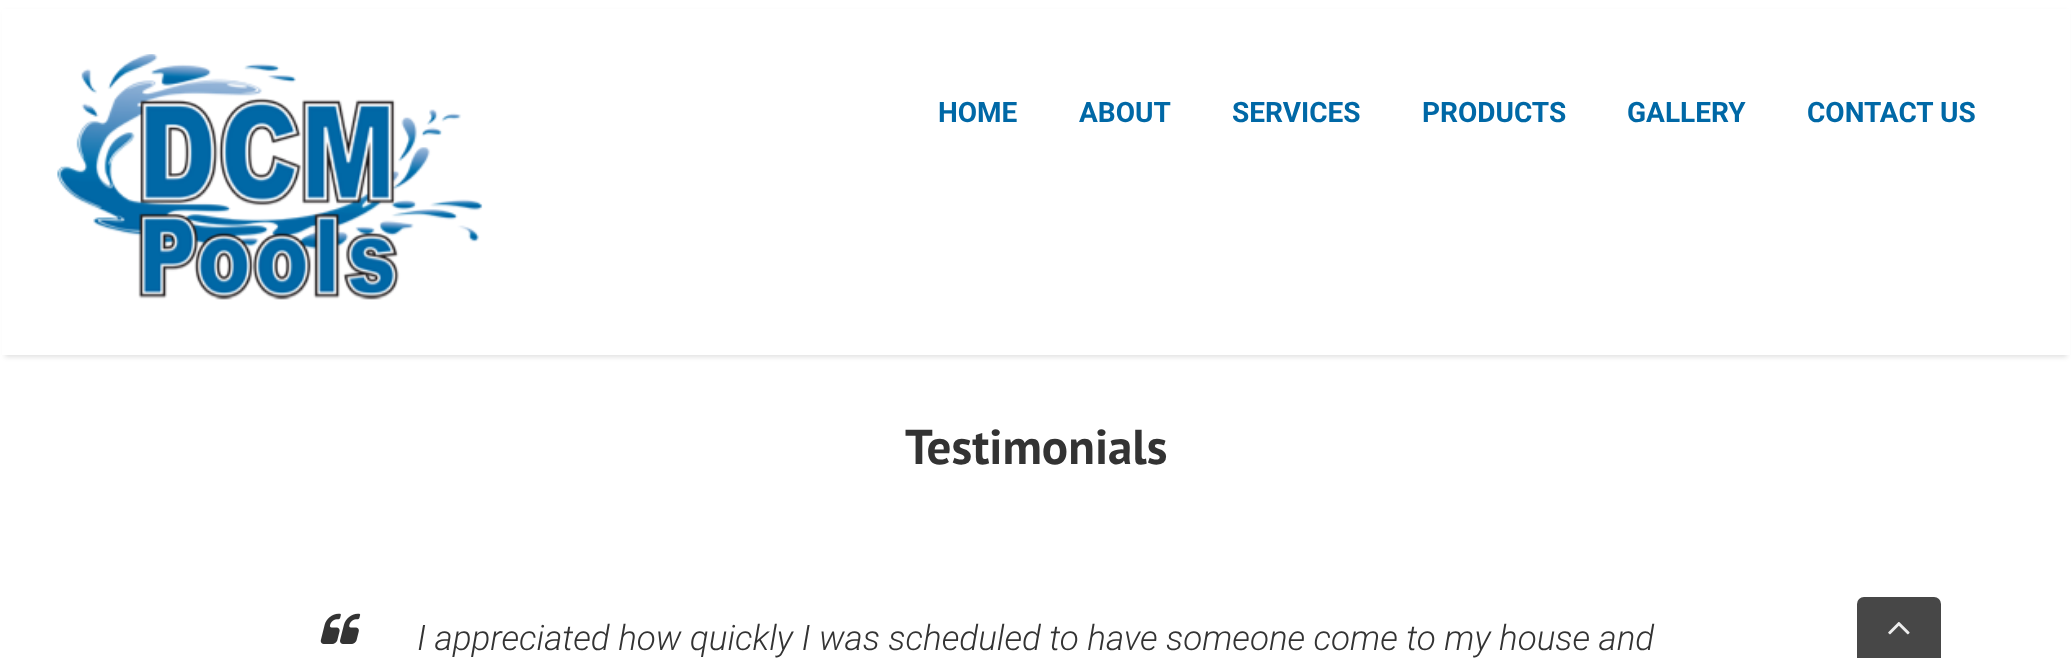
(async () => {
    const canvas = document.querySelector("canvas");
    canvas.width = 2071;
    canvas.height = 658;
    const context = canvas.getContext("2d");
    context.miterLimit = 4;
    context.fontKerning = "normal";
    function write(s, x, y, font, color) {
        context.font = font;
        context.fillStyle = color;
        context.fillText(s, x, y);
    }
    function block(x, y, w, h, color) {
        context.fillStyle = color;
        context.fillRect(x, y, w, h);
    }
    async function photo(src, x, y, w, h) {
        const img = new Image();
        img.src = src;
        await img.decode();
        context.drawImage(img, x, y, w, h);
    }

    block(0, 0, 2071, 658, "rgb(255, 255, 255)");
    context.fillStyle = "rgba(0, 0, 0, 0.12)";
    context.filter = "blur(2.5px)";
    context.beginPath();
    context.rect(5, 12, 2062, 345);
    context.fill();
    context.filter = "none";
    block(2, 9, 2068, 346, "rgb(255, 255, 255)");
    await photo("media/1.png", 57, 54, 426, 246);
    write("HOME", 938, 122, "bold 28px Roboto", "rgb(0, 104, 166)");
    write("ABOUT", 1079, 122, "bold 28px Roboto", "rgb(0, 104, 166)");
    write("SERVICES", 1232, 122, "bold 28px Roboto", "rgb(0, 104, 166)");
    write("PRODUCTS", 1422, 122, "bold 28px Roboto", "rgb(0, 104, 166)");
    write("GALLERY", 1627, 122, "bold 28px Roboto", "rgb(0, 104, 166)");
    write("CONTACT US", 1807, 122, "bold 28px Roboto", "rgb(0, 104, 166)");
    write("Testimonials", 905, 464, "bold 49px PT Sans", "rgb(51, 51, 51)");
    await photo("media/2.png", 320, 613, 41, 31);
    write("I appreciated how quickly I was scheduled to have someone come to my house and", 417, 650, "italic 300 35px Roboto", "rgb(51, 51, 51)");
    context.fillStyle = "rgb(71, 71, 71)";
    context.beginPath();
    context.roundRect(1857, 597, 84, 61, [7, 7, 0, 0]);
    context.fill();
    await photo("media/3.png", 1888, 622, 22, 13);
})();
